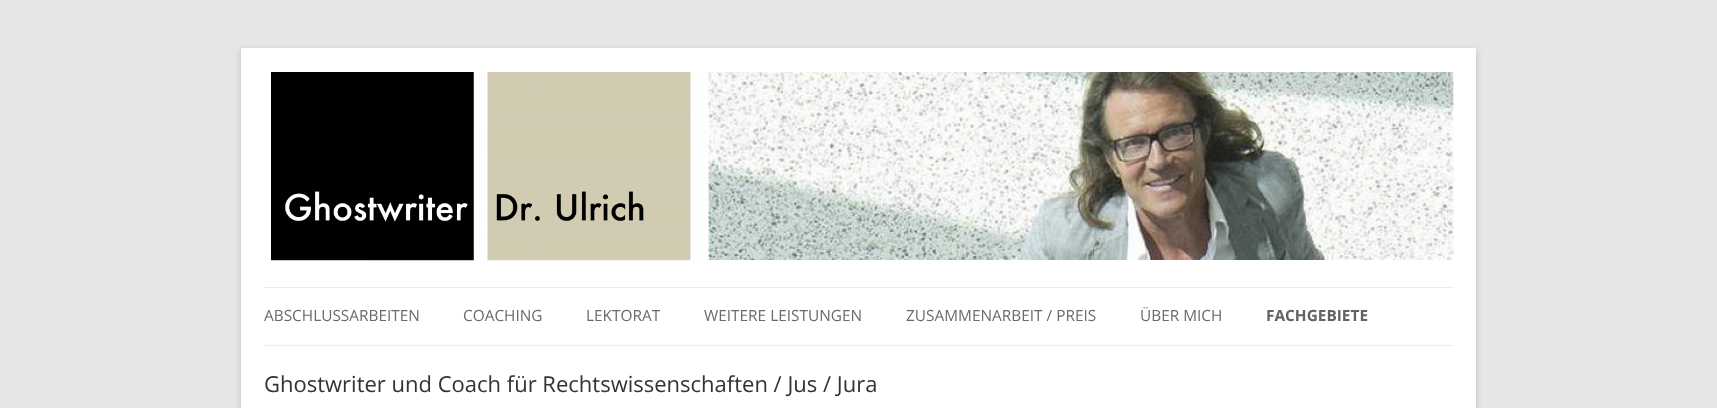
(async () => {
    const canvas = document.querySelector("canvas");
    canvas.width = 1717;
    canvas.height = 408;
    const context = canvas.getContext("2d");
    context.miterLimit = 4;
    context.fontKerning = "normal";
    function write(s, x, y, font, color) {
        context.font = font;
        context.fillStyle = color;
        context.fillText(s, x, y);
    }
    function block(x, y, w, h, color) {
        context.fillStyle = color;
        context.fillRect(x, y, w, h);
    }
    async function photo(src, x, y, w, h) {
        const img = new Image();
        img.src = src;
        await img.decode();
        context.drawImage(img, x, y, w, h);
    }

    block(0, 0, 1717, 408, "rgb(230, 230, 230)");
    context.fillStyle = "rgba(100, 100, 100, 0.3)";
    context.filter = "blur(3px)";
    context.beginPath();
    context.rect(241, 50, 1235, 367);
    context.fill();
    context.filter = "none";
    block(241, 48, 1235, 360, "rgb(255, 255, 255)");
    await photo("media/1.png", 271, 72, 1183, 189);
    block(264, 287, 1190, 1, "rgb(237, 237, 237)");
    block(264, 345, 1190, 1, "rgb(237, 237, 237)");
    write("ABSCHLUSSARBEITEN", 264, 321, "15.4px Open Sans", "rgb(106, 106, 106)");
    write("COACHING", 463, 321, "15.4px Open Sans", "rgb(106, 106, 106)");
    write("LEKTORAT", 586, 321, "15.4px Open Sans", "rgb(106, 106, 106)");
    write("WEITERE LEISTUNGEN", 704, 321, "15.4px Open Sans", "rgb(106, 106, 106)");
    write("ZUSAMMENARBEIT / PREIS", 906, 321, "15.4px Open Sans", "rgb(106, 106, 106)");
    write("ÜBER MICH", 1140, 321, "15.4px Open Sans", "rgb(106, 106, 106)");
    write("FACHGEBIETE", 1266, 321, "bold 15.4px Open Sans", "rgb(99, 99, 99)");
    write("Ghostwriter und Coach für Rechtswissenschaften / Jus / Jura", 264, 392, "22px Open Sans", "rgb(51, 51, 51)");
})();
